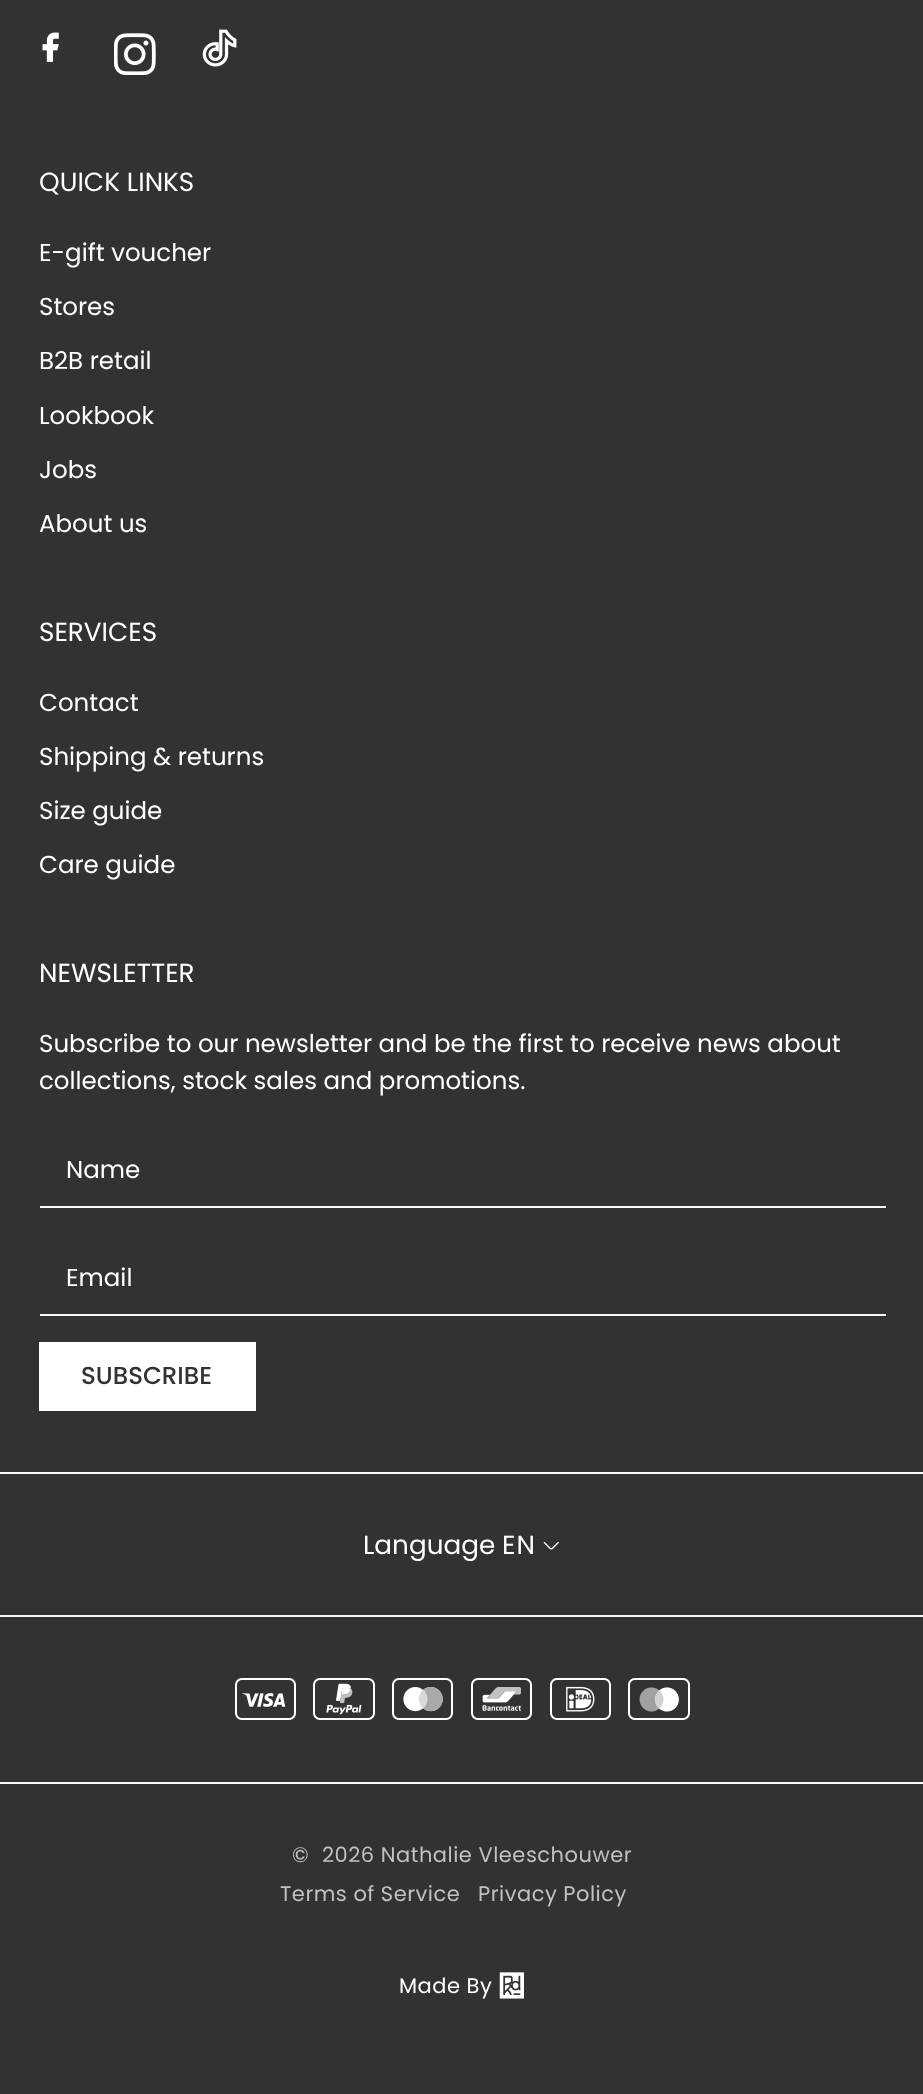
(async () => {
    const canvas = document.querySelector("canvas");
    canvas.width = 923;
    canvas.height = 2094;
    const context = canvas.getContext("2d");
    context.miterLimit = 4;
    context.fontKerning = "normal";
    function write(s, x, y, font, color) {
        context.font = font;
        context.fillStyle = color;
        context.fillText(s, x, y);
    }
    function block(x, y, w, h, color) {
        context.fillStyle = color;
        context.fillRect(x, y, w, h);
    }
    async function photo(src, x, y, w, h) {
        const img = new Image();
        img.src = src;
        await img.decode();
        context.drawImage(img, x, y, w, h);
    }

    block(0, 0, 923, 2094, "rgb(50, 50, 50)");
    await photo("media/1.png", 42, 32, 17, 30);
    await photo("media/2.png", 114, 33, 42, 42);
    await photo("media/3.png", 202, 29, 35, 38);
    write("QUICK LINKS", 39, 191, "26.25px Poppins", "rgb(255, 255, 255)");
    write("E-gift voucher", 39, 261, "24.5px Poppins", "rgb(255, 255, 255)");
    write("Stores", 39, 315, "24.5px Poppins", "rgb(255, 255, 255)");
    write("B2B retail", 39, 369, "24.5px Poppins", "rgb(255, 255, 255)");
    write("Lookbook", 39, 424, "24.5px Poppins", "rgb(255, 255, 255)");
    write("Jobs", 39, 478, "24.5px Poppins", "rgb(255, 255, 255)");
    write("About us", 39, 532, "24.5px Poppins", "rgb(255, 255, 255)");
    write("SERVICES", 39, 641, "26.25px Poppins", "rgb(255, 255, 255)");
    write("Contact", 39, 711, "24.5px Poppins", "rgb(255, 255, 255)");
    write("Shipping & returns", 39, 765, "24.5px Poppins", "rgb(255, 255, 255)");
    write("Size guide", 39, 819, "24.5px Poppins", "rgb(255, 255, 255)");
    write("Care guide", 39, 873, "24.5px Poppins", "rgb(255, 255, 255)");
    write("NEWSLETTER", 39, 982, "26.25px Poppins", "rgb(255, 255, 255)");
    write("Subscribe to our newsletter and be the first to receive news about", 39, 1052, "24.5px Poppins", "rgb(255, 255, 255)");
    write("collections, stock sales and promotions.", 39, 1089, "24.5px Poppins", "rgb(255, 255, 255)");
    block(40, 1206, 846, 2, "rgb(249, 248, 244)");
    write("Name", 66, 1178, "24.5px Poppins", "rgb(255, 255, 255)");
    block(40, 1314, 846, 2, "rgb(249, 248, 244)");
    write("Email", 66, 1286, "24.5px Poppins", "rgb(255, 255, 255)");
    block(39, 1342, 217, 69, "rgb(255, 255, 255)");
    write("SUBSCRIBE", 81, 1384, "500 24.5px Poppins", "rgb(50, 50, 50)");
    block(0, 1472, 923, 2, "rgb(249, 248, 244)");
    write("Language", 363, 1554, "26.25px Poppins", "rgb(255, 255, 255)");
    context.letterSpacing = "1px";
    write("EN", 502, 1554, "26.25px Poppins", "rgb(255, 255, 255)");
    await photo("media/4.png", 543, 1542, 16, 8);
    block(0, 1615, 923, 2, "rgb(249, 248, 244)");
    block(0, 1782, 923, 2, "rgb(249, 248, 244)");
    await photo("media/5.png", 235, 1678, 61, 42);
    await photo("media/6.png", 313, 1678, 62, 42);
    await photo("media/7.png", 392, 1678, 61, 42);
    await photo("media/8.png", 471, 1678, 61, 42);
    await photo("media/9.png", 550, 1678, 61, 42);
    await photo("media/10.png", 628, 1678, 62, 42);
    context.letterSpacing = "0.5px";
    write("©", 292, 1862, "21px Poppins", "rgb(192, 193, 193)");
    write("2026 Nathalie Vleeschouwer", 322, 1862, "21px Poppins", "rgb(192, 193, 193)");
    write("Terms of Service", 280, 1901, "21px Poppins", "rgb(192, 193, 193)");
    write("Privacy Policy", 478, 1901, "21px Poppins", "rgb(192, 193, 193)");
    write("Made By", 399, 1993, "21px Poppins", "rgb(255, 255, 255)");
    await photo("media/11.png", 499, 1972, 25, 27);
})();
